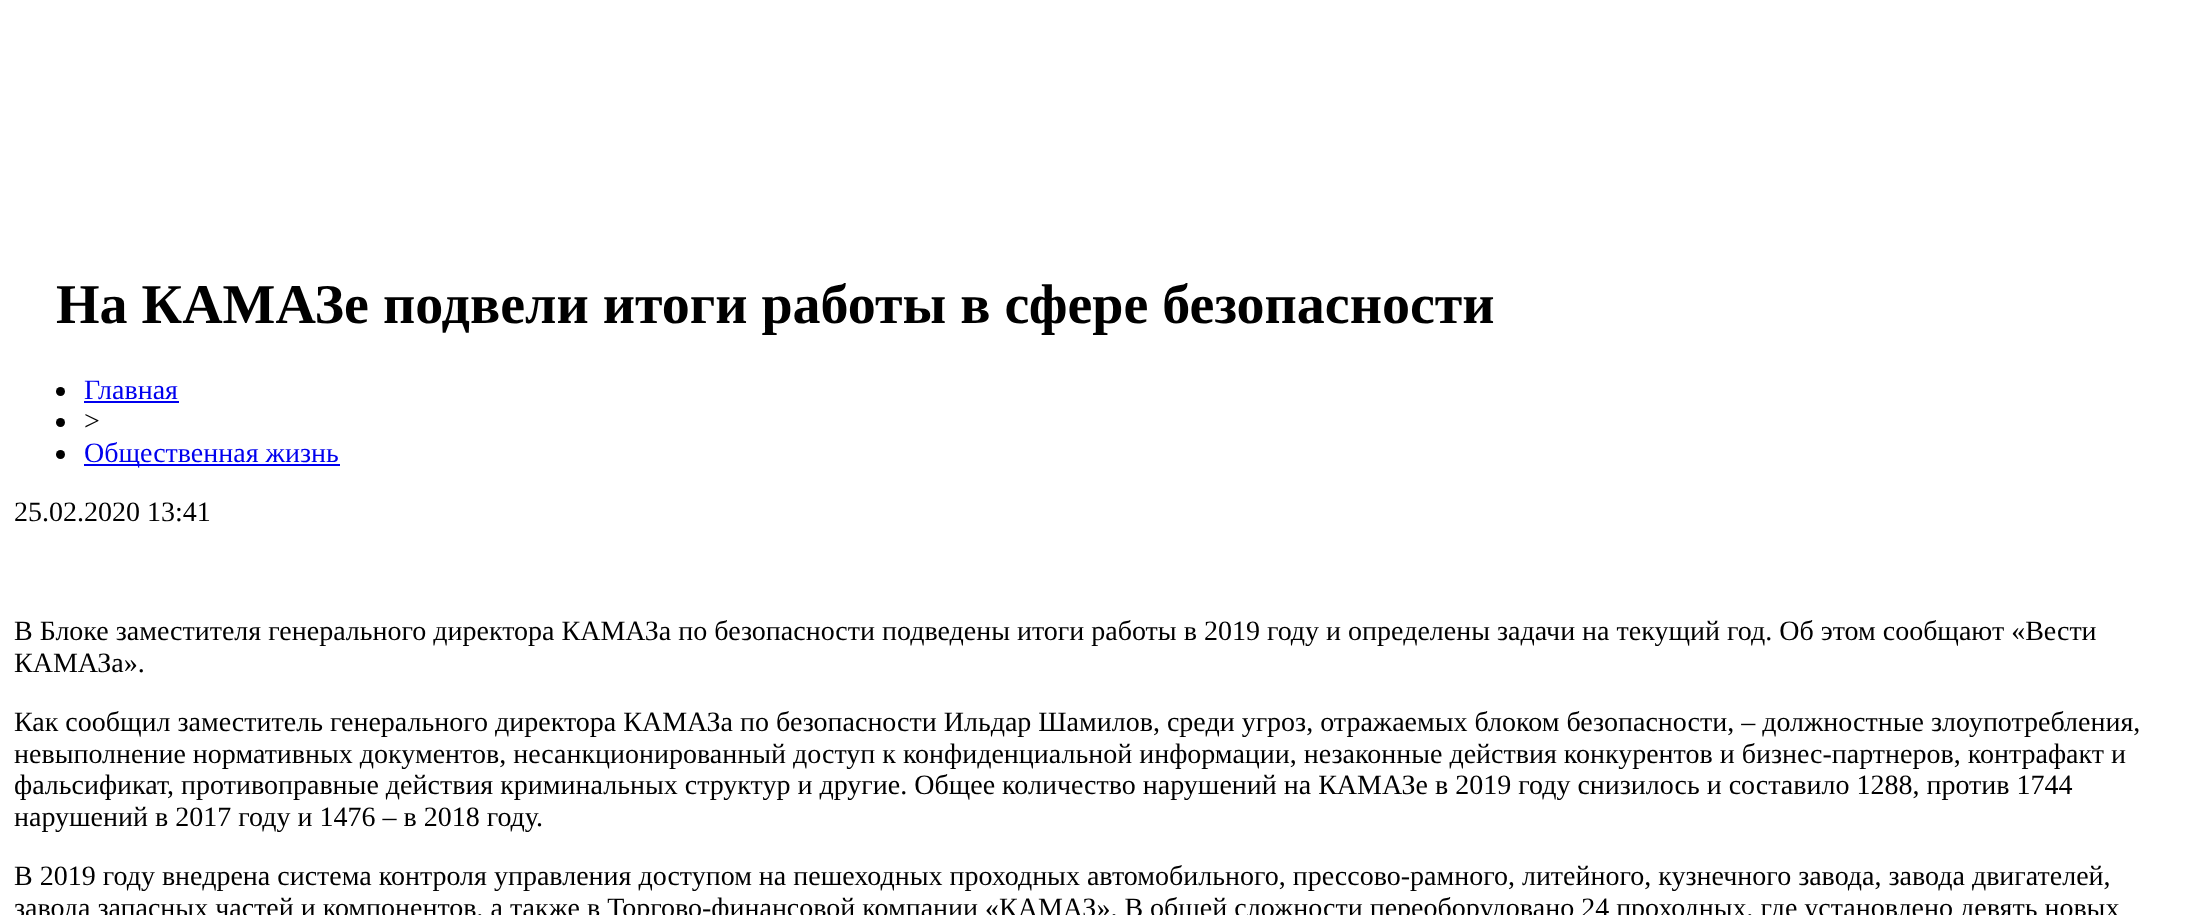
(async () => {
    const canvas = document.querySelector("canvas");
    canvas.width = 2189;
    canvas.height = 915;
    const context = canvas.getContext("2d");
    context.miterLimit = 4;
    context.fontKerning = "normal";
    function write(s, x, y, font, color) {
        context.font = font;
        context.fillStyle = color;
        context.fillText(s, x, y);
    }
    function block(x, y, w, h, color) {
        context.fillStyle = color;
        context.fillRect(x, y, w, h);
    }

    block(0, 0, 2189, 915, "rgb(255, 255, 255)");
    write("На КАМАЗе подвели итоги работы в сфере безопасности", 56, 323, "bold 56px Liberation Serif", "rgb(0, 0, 0)");
    context.beginPath();
    context.arc(60.5, 391.5, 4.5, 0, Math.PI * 2);
    context.fill();
    write("Главная", 84, 399, "28px Liberation Serif", "rgb(0, 0, 238)");
    block(84, 401, 95, 2, "rgb(0, 0, 238)");
    context.fillStyle = "rgb(0, 0, 0)";
    context.beginPath();
    context.arc(60.5, 422.5, 4.5, 0, Math.PI * 2);
    context.fill();
    write(">", 84, 430, "28px Liberation Serif", "rgb(0, 0, 0)");
    context.beginPath();
    context.arc(60.5, 454.5, 4.5, 0, Math.PI * 2);
    context.fill();
    block(84, 464, 256, 2, "rgb(0, 0, 238)");
    write("Общественная жизнь", 84, 462, "28px Liberation Serif", "rgb(0, 0, 238)");
    write("25.02.2020 13:41", 14, 521, "28px Liberation Serif", "rgb(0, 0, 0)");
    write("В Блоке заместителя генерального директора КАМАЗа по безопасности подведены итоги работы в 2019 году и определены задачи на текущий год. Об этом сообщают «Вести", 14, 640, "28px Liberation Serif", "rgb(0, 0, 0)");
    write("КАМАЗа».", 14, 672, "28px Liberation Serif", "rgb(0, 0, 0)");
    write("Как сообщил заместитель генерального директора КАМАЗа по безопасности Ильдар Шамилов, среди угроз, отражаемых блоком безопасности, – должностные злоупотребления,", 14, 731, "28px Liberation Serif", "rgb(0, 0, 0)");
    write("невыполнение нормативных документов, несанкционированный доступ к конфиденциальной информации, незаконные действия конкурентов и бизнес-партнеров, контрафакт и", 14, 763, "28px Liberation Serif", "rgb(0, 0, 0)");
    write("фальсификат, противоправные действия криминальных структур и другие. Общее количество нарушений на КАМАЗе в 2019 году снизилось и составило 1288, против 1744", 14, 794, "28px Liberation Serif", "rgb(0, 0, 0)");
    write("нарушений в 2017 году и 1476 – в 2018 году.", 14, 826, "28px Liberation Serif", "rgb(0, 0, 0)");
    write("В 2019 году внедрена система контроля управления доступом на пешеходных проходных автомобильного, прессово-рамного, литейного, кузнечного завода, завода двигателей,", 14, 885, "28px Liberation Serif", "rgb(0, 0, 0)");
    write("завода запасных частей и компонентов, а также в Торгово-финансовой компании «КАМАЗ». В общей сложности переоборудовано 24 проходных, где установлено девять новых", 14, 917, "28px Liberation Serif", "rgb(0, 0, 0)");
})();
